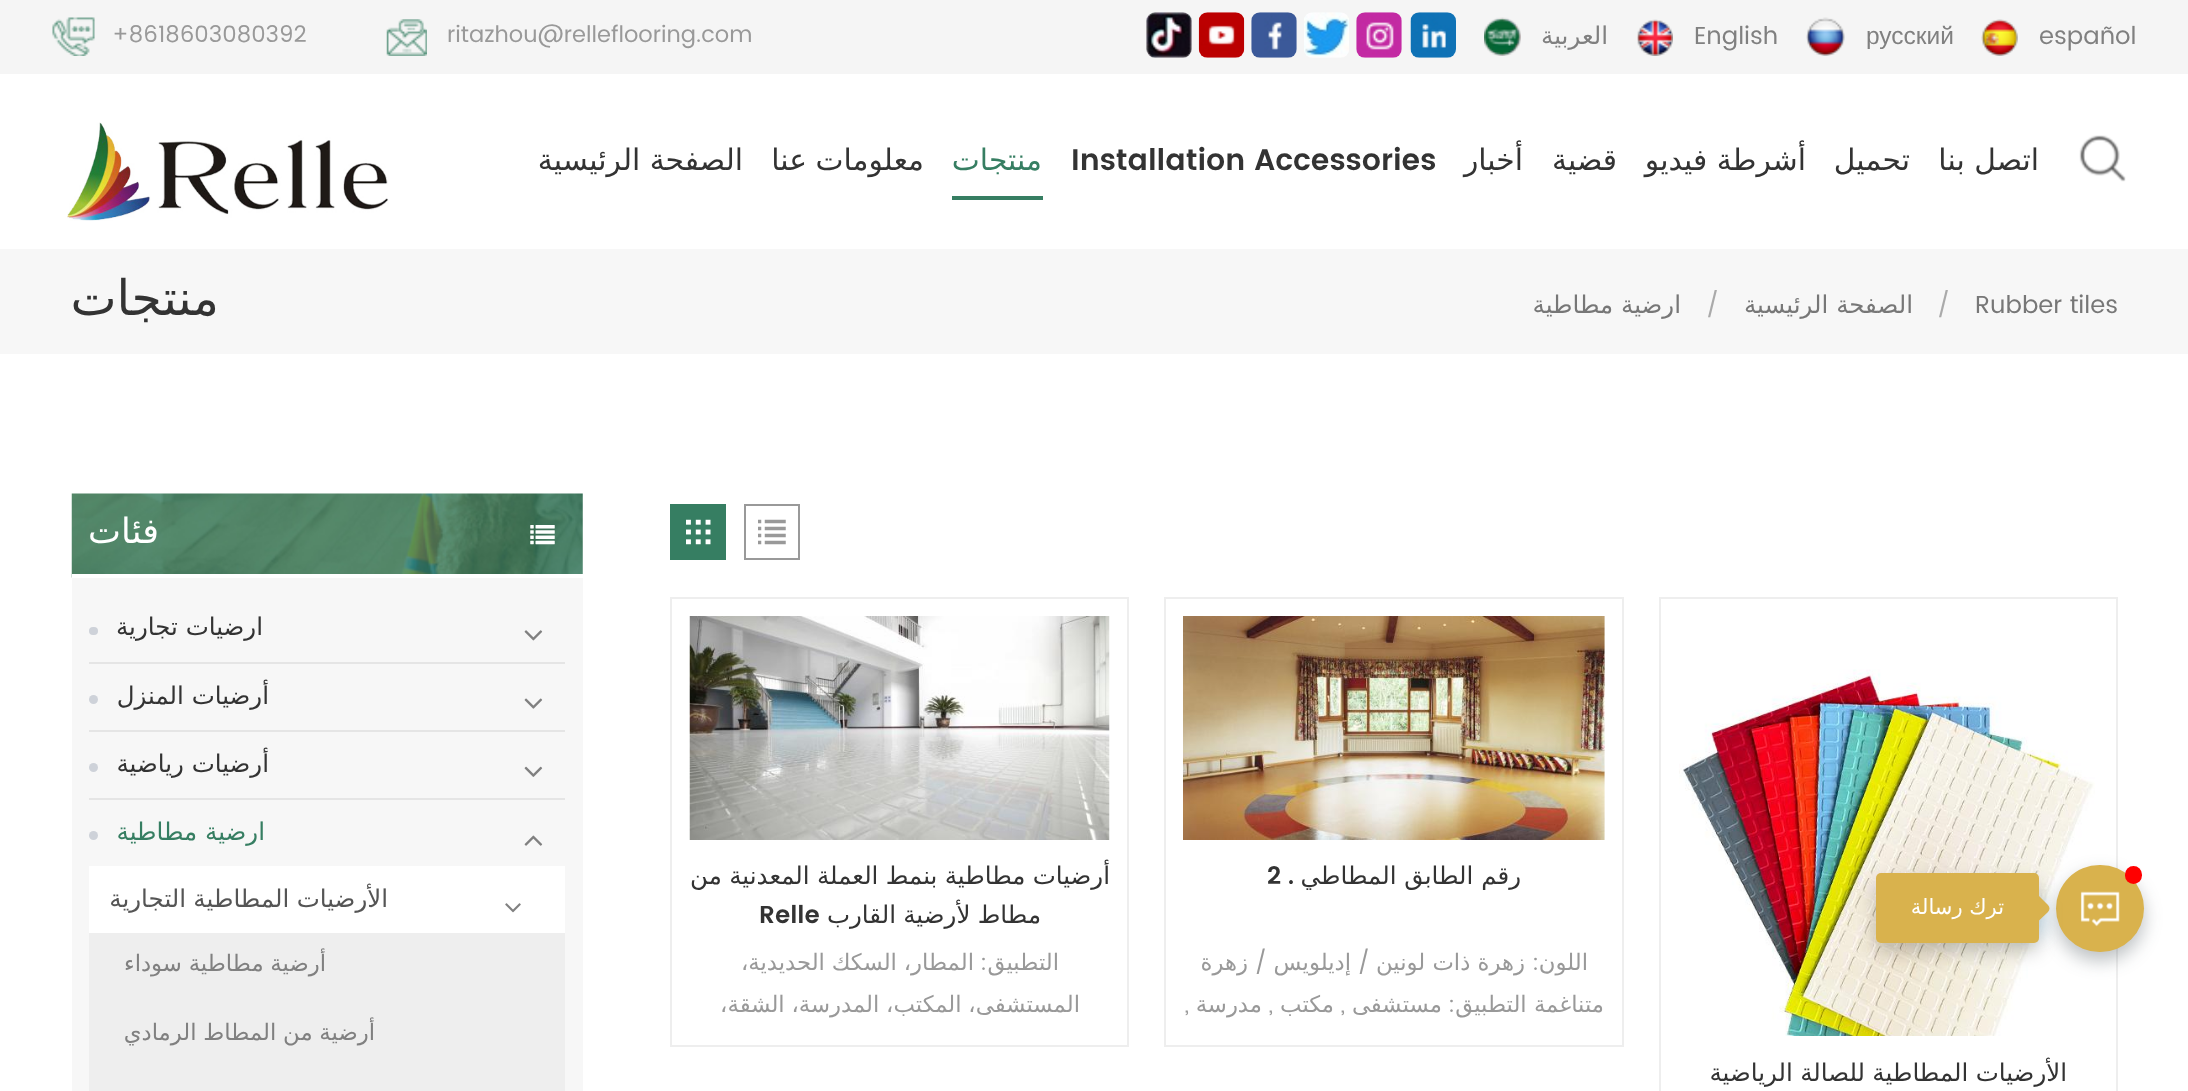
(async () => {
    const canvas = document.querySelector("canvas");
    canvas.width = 2188;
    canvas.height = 1091;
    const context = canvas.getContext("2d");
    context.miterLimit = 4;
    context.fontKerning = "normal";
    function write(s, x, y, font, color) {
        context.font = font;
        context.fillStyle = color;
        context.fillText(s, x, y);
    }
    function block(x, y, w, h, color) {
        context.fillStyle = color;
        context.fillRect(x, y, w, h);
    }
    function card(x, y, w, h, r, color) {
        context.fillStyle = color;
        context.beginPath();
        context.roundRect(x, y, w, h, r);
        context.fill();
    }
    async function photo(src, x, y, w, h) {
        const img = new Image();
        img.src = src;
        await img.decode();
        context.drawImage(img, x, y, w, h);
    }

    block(0, 0, 2188, 1091, "rgb(255, 255, 255)");
    block(0, 0, 2188, 74, "rgb(245, 245, 245)");
    write("español", 2039, 44, "24.5px Poppins", "rgb(128, 128, 128)");
    await photo("media/1.png", 1981, 19, 37, 37);
    write("русский", 1866, 44, "24.5px Liberation Sans", "rgb(128, 128, 128)");
    await photo("media/2.png", 1806, 17, 39, 39);
    write("English", 1694, 44, "24.5px Poppins", "rgb(128, 128, 128)");
    await photo("media/3.png", 1637, 19, 36, 37);
    context.direction = "rtl";
    write("العربية", 1608, 44, "24.5px DejaVu Sans", "rgb(128, 128, 128)");
    await photo("media/4.png", 1484, 17, 37, 39);
    await photo("media/5.png", 1410, 12, 46, 46);
    await photo("media/6.png", 1356, 12, 46, 46);
    await photo("media/7.png", 1304, 12, 45, 46);
    await photo("media/8.png", 1251, 12, 46, 46);
    await photo("media/9.png", 1198, 12, 47, 46);
    await photo("media/10.png", 1146, 12, 46, 46);
    await photo("media/11.png", 386, 19, 41, 37);
    context.direction = "ltr";
    write("ritazhou@relleflooring.com", 447, 42, "22.75px Poppins", "rgb(153, 153, 153)");
    await photo("media/12.png", 52, 17, 43, 39);
    write("+8618603080392", 112, 42, "22.75px Poppins", "rgb(153, 153, 153)");
    await photo("media/13.png", 2079, 135, 47, 47);
    context.direction = "rtl";
    write("اتصل بنا", 2039, 170, "29.75px DejaVu Sans", "rgb(51, 51, 51)");
    write("تحميل", 1910, 170, "29.75px DejaVu Sans", "rgb(51, 51, 51)");
    write("أشرطة فيديو", 1806, 170, "29.75px DejaVu Sans", "rgb(51, 51, 51)");
    write("قضية", 1617, 170, "29.75px DejaVu Sans", "rgb(51, 51, 51)");
    write("أخبار", 1523, 170, "29.75px DejaVu Sans", "rgb(51, 51, 51)");
    context.direction = "ltr";
    write("Installation Accessories", 1071, 170, "600 29.75px Poppins", "rgb(51, 51, 51)");
    context.direction = "rtl";
    write("منتجات", 1042, 170, "29.75px DejaVu Sans", "rgb(54, 126, 98)");
    block(952, 196, 91, 4, "rgb(54, 126, 98)");
    context.wordSpacing = "-1px";
    write("معلومات عنا", 924, 170, "29.75px DejaVu Sans", "rgb(51, 51, 51)");
    context.wordSpacing = "0px";
    write("الصفحة الرئيسية", 743, 170, "29.75px DejaVu Sans", "rgb(51, 51, 51)");
    await photo("media/14.png", 67, 122, 322, 99);
    block(0, 249, 2188, 105, "rgb(247, 247, 247)");
    context.direction = "ltr";
    write("Rubber tiles", 1975, 313, "24.5px Poppins", "rgb(119, 119, 119)");
    write("/", 1937, 313, "24.5px Poppins", "rgb(170, 170, 170)");
    context.direction = "rtl";
    write("الصفحة الرئيسية", 1913, 313, "24.5px DejaVu Sans", "rgb(119, 119, 119)");
    context.direction = "ltr";
    write("/", 1706, 313, "24.5px Poppins", "rgb(170, 170, 170)");
    context.direction = "rtl";
    write("ارضية مطاطية", 1681, 313, "24.5px DejaVu Sans", "rgb(119, 119, 119)");
    write("منتجات", 219, 315, "49px DejaVu Sans", "rgb(51, 51, 51)");
    context.strokeStyle = "rgb(153, 153, 153)";
    context.lineWidth = 2;
    context.strokeRect(745, 505, 54, 54);
    await photo("media/15.png", 758, 519, 28, 26);
    block(670, 504, 56, 56, "rgb(54, 126, 98)");
    await photo("media/16.png", 686, 519, 25, 26);
    context.strokeStyle = "rgb(238, 238, 238)";
    context.strokeRect(1165, 598, 458, 448);
    await photo("media/17.png", 1183, 616, 422, 224);
    write("رقم الطابق المطاطي", 1521, 884, "24.5px DejaVu Sans", "rgb(51, 51, 51)");
    write(".", 1294, 884, "600 24.5px Poppins", "rgb(51, 51, 51)");
    context.direction = "ltr";
    write("2", 1267, 884, "600 24.5px Poppins", "rgb(51, 51, 51)");
    context.direction = "rtl";
    write("اللون", 1588, 970, "22.75px DejaVu Sans", "rgb(153, 153, 153)");
    write(":", 1539, 970, "22.75px Poppins", "rgb(153, 153, 153)");
    write("زهرة ذات لونين", 1525, 970, "22.75px DejaVu Sans", "rgb(153, 153, 153)");
    write("/", 1370, 970, "22.75px Poppins", "rgb(153, 153, 153)");
    write("إديلويس", 1351, 970, "22.75px DejaVu Sans", "rgb(153, 153, 153)");
    write("/", 1267, 970, "22.75px Poppins", "rgb(153, 153, 153)");
    write("زهرة", 1248, 970, "22.75px DejaVu Sans", "rgb(153, 153, 153)");
    write("متناغمة التطبيق", 1604, 1012, "22.75px DejaVu Sans", "rgb(153, 153, 153)");
    write(":", 1455, 1012, "22.75px Poppins", "rgb(153, 153, 153)");
    write("مستشفى", 1442, 1012, "22.75px DejaVu Sans", "rgb(153, 153, 153)");
    write(",", 1345, 1012, "22.75px Poppins", "rgb(153, 153, 153)");
    write("مكتب", 1334, 1012, "22.75px DejaVu Sans", "rgb(153, 153, 153)");
    write(",", 1273, 1012, "22.75px Poppins", "rgb(153, 153, 153)");
    write("مدرسة", 1262, 1012, "22.75px DejaVu Sans", "rgb(153, 153, 153)");
    write(",", 1189, 1012, "22.75px Poppins", "rgb(153, 153, 153)");
    context.strokeRect(671, 598, 457, 448);
    await photo("media/18.png", 689, 616, 421, 224);
    context.save();
    context.beginPath();
    context.rect(690, 858, 420, 77);
    context.clip();
    context.wordSpacing = "-0.5px";
    write("أرضيات مطاطية بنمط العملة المعدنية من", 1110, 884, "24.5px DejaVu Sans", "rgb(51, 51, 51)");
    context.restore();
    context.wordSpacing = "-0.5px";
    write("مطاط لأرضية القارب", 1041, 923, "24.5px DejaVu Sans", "rgb(51, 51, 51)");
    context.wordSpacing = "0px";
    context.direction = "ltr";
    write("Relle", 759, 923, "600 24.5px Poppins", "rgb(51, 51, 51)");
    context.direction = "rtl";
    write("التطبيق", 1059, 970, "22.75px DejaVu Sans", "rgb(153, 153, 153)");
    write(":", 987, 970, "22.75px Poppins", "rgb(153, 153, 153)");
    context.wordSpacing = "-0.5px";
    write("المطار، السكك الحديدية،", 974, 970, "22.75px DejaVu Sans", "rgb(153, 153, 153)");
    write("المستشفى، المكتب، المدرسة، الشقة،", 1080, 1012, "22.75px DejaVu Sans", "rgb(153, 153, 153)");
    context.strokeRect(1660, 598, 457, 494);
    await photo("media/19.png", 1679, 669, 416, 367);
    write("الأرضيات المطاطية للصالة الرياضية", 2067, 1081, "24.5px DejaVu Sans", "rgb(51, 51, 51)");
    await photo("media/20.png", 71, 493, 512, 85);
    block(72, 574, 511, 4, "rgb(255, 255, 255)");
    await photo("media/21.png", 530, 525, 25, 20);
    context.wordSpacing = "0px";
    write("فئات", 159, 543, "35px DejaVu Sans", "rgb(255, 255, 255)");
    block(72, 578, 511, 513, "rgb(247, 247, 247)");
    block(89, 662, 476, 2, "rgb(229, 229, 229)");
    await photo("media/22.png", 524, 630, 19, 11);
    write("ارضيات تجارية", 263, 635, "24.5px DejaVu Sans", "rgb(51, 51, 51)");
    card(89, 627, 9, 8, 4, "rgb(206, 210, 217)");
    block(89, 730, 476, 2, "rgb(229, 229, 229)");
    await photo("media/23.png", 524, 698, 19, 11);
    write("أرضيات المنزل", 269, 704, "24.5px DejaVu Sans", "rgb(51, 51, 51)");
    context.fillStyle = "rgb(206, 210, 217)";
    context.beginPath();
    context.arc(93.5, 699.5, 4.5, 0, Math.PI * 2);
    context.fill();
    block(89, 798, 476, 2, "rgb(229, 229, 229)");
    await photo("media/24.png", 524, 766, 19, 11);
    write("أرضيات رياضية", 269, 772, "24.5px DejaVu Sans", "rgb(51, 51, 51)");
    context.fillStyle = "rgb(206, 210, 217)";
    context.beginPath();
    context.arc(93.5, 767.5, 4.5, 0, Math.PI * 2);
    context.fill();
    await photo("media/25.png", 524, 835, 19, 11);
    write("ارضية مطاطية", 265, 840, "24.5px DejaVu Sans", "rgb(54, 126, 98)");
    context.fillStyle = "rgb(206, 210, 217)";
    context.beginPath();
    context.arc(93.5, 835.5, 4.5, 0, Math.PI * 2);
    context.fill();
    block(89, 866, 476, 67, "rgb(255, 255, 255)");
    await photo("media/26.png", 505, 903, 16, 10);
    context.wordSpacing = "-0.5px";
    write("الأرضيات المطاطية التجارية", 388, 907, "24.5px DejaVu Sans", "rgb(85, 85, 85)");
    block(89, 933, 476, 158, "rgb(238, 238, 238)");
    write("أرضية مطاطية سوداء", 326, 971, "22.75px DejaVu Sans", "rgb(128, 128, 128)");
    write("أرضية من المطاط الرمادي", 375, 1040, "22.75px DejaVu Sans", "rgb(128, 128, 128)");
    context.fillStyle = "rgba(35, 50, 56, 0.3)";
    context.filter = "blur(9px)";
    context.beginPath();
    context.roundRect(2056, 873, 88, 88, 44);
    context.fill();
    context.filter = "none";
    card(2056, 865, 88, 87, 43.5, "rgb(217, 178, 77)");
    await photo("media/27.png", 2080, 891, 40, 36);
    card(2125, 866, 17, 18, 8.5, "rgb(255, 0, 0)");
    context.fillStyle = "rgba(0, 0, 0, 0.2)";
    context.filter = "blur(9px)";
    context.beginPath();
    context.roundRect(1876, 882, 163, 70, 5);
    context.fill();
    context.filter = "none";
    context.fillStyle = "rgba(0, 113, 181, 0.2)";
    context.filter = "blur(9px)";
    context.beginPath();
    context.roundRect(2009, 900, 35, 35, 5);
    context.fill();
    context.filter = "none";
    context.fillStyle = "rgb(217, 178, 77)";
    context.beginPath();
    context.moveTo(2005, 905);
    context.lineTo(2023, 887);
    context.bezierCurveTo(2025, 885, 2028, 885, 2030, 887);
    context.lineTo(2048, 905);
    context.bezierCurveTo(2050, 907, 2050, 910, 2048, 912);
    context.lineTo(2030, 929);
    context.bezierCurveTo(2028, 931, 2025, 931, 2023, 929);
    context.lineTo(2005, 912);
    context.bezierCurveTo(2003, 910, 2003, 907, 2005, 905);
    context.closePath();
    context.fill();
    card(1876, 873, 163, 70, 5, "rgb(217, 178, 77)");
    context.wordSpacing = "0px";
    write("ترك رسالة", 2004, 914, "21px DejaVu Sans", "rgb(255, 255, 255)");
})();
